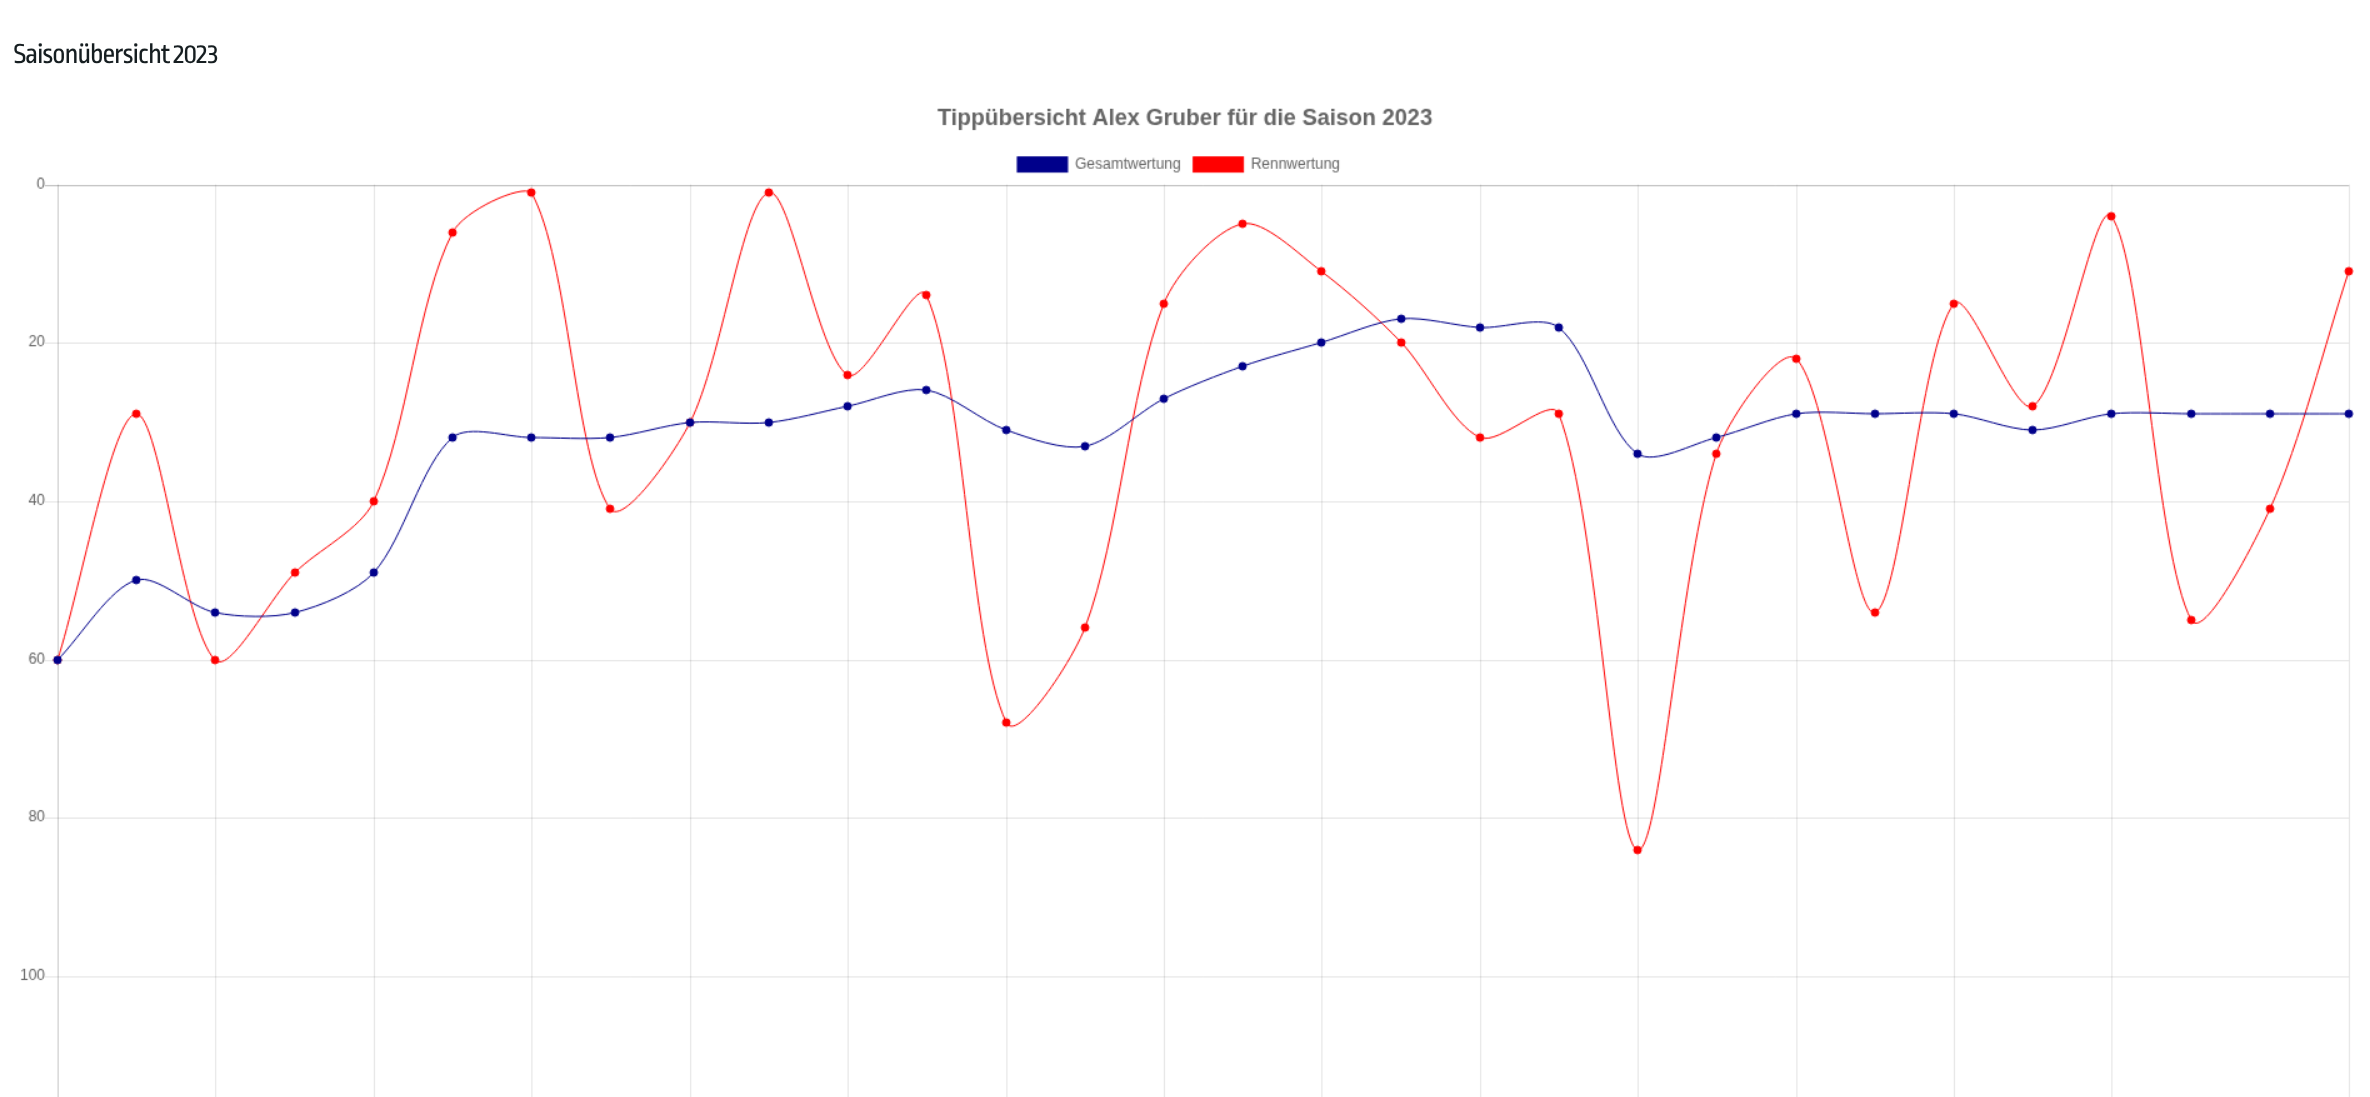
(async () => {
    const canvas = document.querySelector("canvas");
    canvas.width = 2370;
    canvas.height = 1097;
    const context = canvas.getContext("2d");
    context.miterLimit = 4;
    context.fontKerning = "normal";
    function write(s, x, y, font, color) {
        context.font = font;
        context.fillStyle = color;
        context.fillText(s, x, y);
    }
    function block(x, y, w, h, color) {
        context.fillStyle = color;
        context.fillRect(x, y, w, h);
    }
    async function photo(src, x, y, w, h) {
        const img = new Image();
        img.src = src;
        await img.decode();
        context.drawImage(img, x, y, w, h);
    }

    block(0, 0, 2370, 1097, "rgb(255, 255, 255)");
    context.letterSpacing = "-1.25px";
    write("Saisonübersicht 2023", 13, 63, "29px Ropa Sans", "rgb(22, 30, 33)");
    await photo("media/1.png", 20, 108, 2334, 989);
})();
